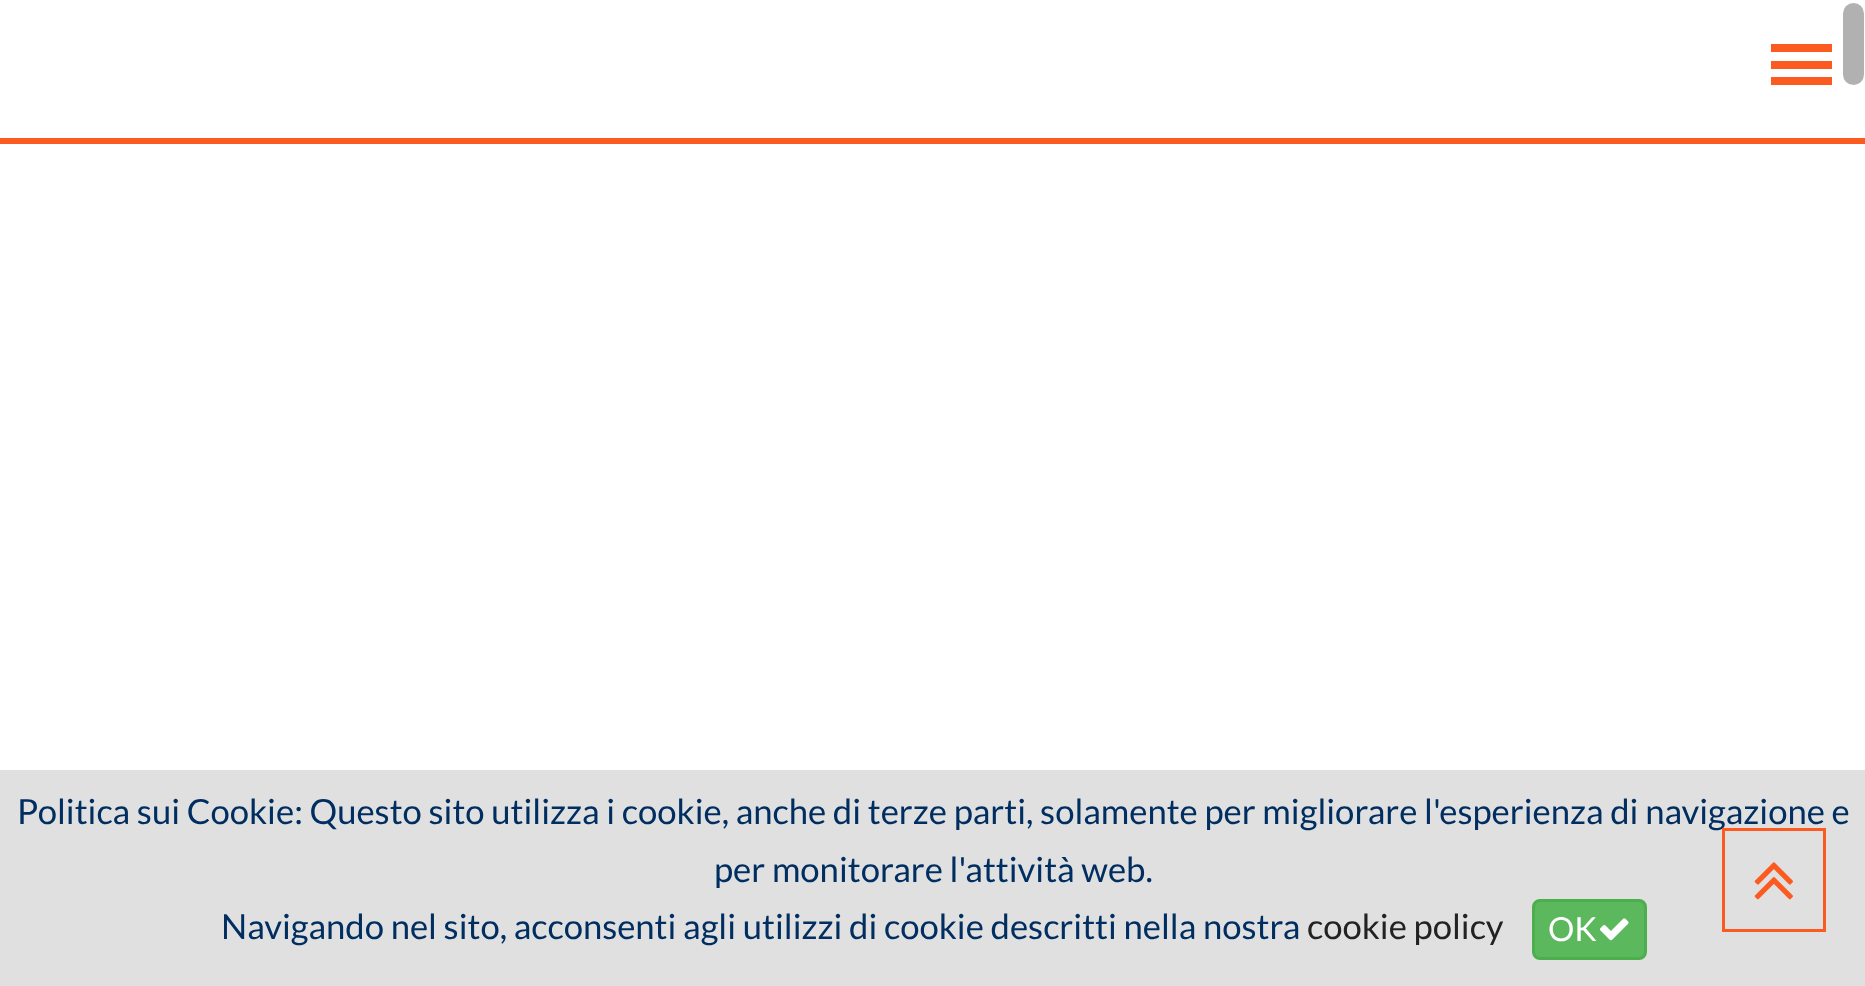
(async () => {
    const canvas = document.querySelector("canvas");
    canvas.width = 1865;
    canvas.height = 986;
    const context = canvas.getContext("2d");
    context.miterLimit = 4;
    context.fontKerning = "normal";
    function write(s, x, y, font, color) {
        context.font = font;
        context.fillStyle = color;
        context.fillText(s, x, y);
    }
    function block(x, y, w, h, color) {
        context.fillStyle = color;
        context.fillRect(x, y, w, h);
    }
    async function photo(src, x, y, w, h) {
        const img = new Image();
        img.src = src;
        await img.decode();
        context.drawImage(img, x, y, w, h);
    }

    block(0, 0, 1865, 986, "rgb(255, 255, 255)");
    context.fillStyle = "rgb(177, 177, 177)";
    context.beginPath();
    context.roundRect(1841.5, 1.5, 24, 85, 12);
    context.fill();
    context.strokeStyle = "rgb(255, 255, 255)";
    context.lineWidth = 3;
    context.stroke();
    block(0, 138, 1865, 6, "rgb(251, 91, 33)");
    block(1771, 44, 61, 8, "rgb(251, 91, 33)");
    block(1771, 61, 61, 8, "rgb(251, 91, 33)");
    block(1771, 77, 61, 8, "rgb(251, 91, 33)");
    block(0, 770, 1865, 216, "rgb(224, 224, 224)");
    write("Politica sui Cookie: Questo sito utilizza i cookie, anche di terze parti, solamente per migliorare l'esperienza di navigazione e", 17, 824, "34.65px Lato", "rgb(0, 46, 96)");
    write("per monitorare l'attività web.", 714, 882, "34.65px Lato", "rgb(0, 46, 96)");
    write("Navigando nel sito, acconsenti agli utilizzi di cookie descritti nella nostra", 221, 939, "34.65px Lato", "rgb(0, 46, 96)");
    write("cookie policy", 1307, 939, "34.65px Lato", "rgb(34, 34, 34)");
    context.fillStyle = "rgb(92, 184, 92)";
    context.beginPath();
    context.roundRect(1533.5, 900.5, 112, 58, 6.5);
    context.fill();
    context.strokeStyle = "rgb(76, 174, 76)";
    context.stroke();
    write("OK", 1548, 941, "33px Lato", "rgb(255, 255, 255)");
    await photo("media/1.png", 1600, 918, 29, 23);
    context.strokeStyle = "rgb(251, 91, 33)";
    context.strokeRect(1723.5, 829.5, 101, 101);
    await photo("media/2.png", 1754, 862, 39, 38);
})();
